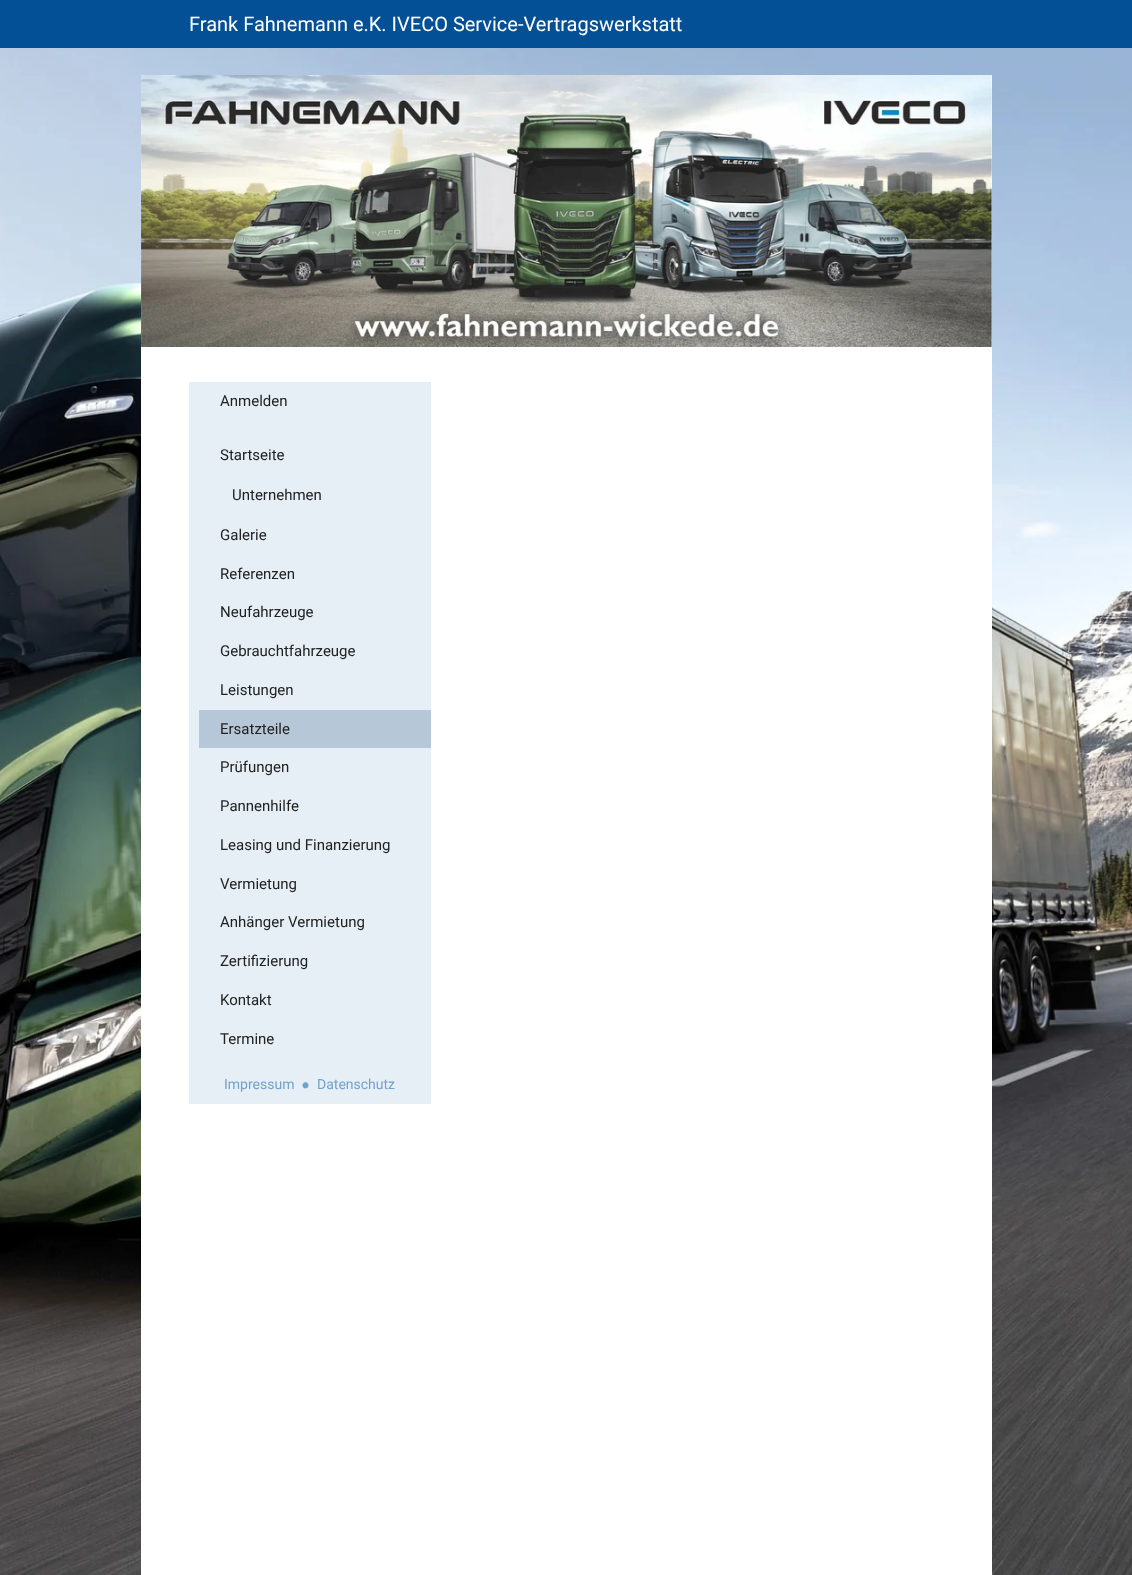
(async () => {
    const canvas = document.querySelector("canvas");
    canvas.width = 1132;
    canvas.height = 1575;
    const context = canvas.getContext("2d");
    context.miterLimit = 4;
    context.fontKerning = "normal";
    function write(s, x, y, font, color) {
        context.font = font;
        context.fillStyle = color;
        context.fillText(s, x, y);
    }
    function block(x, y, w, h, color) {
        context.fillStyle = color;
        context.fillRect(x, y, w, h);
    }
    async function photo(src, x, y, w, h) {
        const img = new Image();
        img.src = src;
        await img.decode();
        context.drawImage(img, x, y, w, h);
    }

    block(0, 0, 1132, 1575, "rgb(255, 255, 255)");
    block(0, 0, 1132, 48, "rgb(4, 80, 151)");
    write("Frank Fahnemann e.K. IVECO Service-Vertragswerkstatt", 189, 31, "20px Roboto", "rgb(255, 255, 255)");
    await photo("media/2.png", 0, 48, 1132, 1527);
    await photo("media/1.png", 141, 75, 851, 272);
    block(141, 347, 851, 1228, "rgb(255, 255, 255)");
    block(189, 382, 242, 722, "rgb(230, 238, 246)");
    write("Anmelden", 220, 406, "15px Roboto", "rgb(34, 34, 34)");
    write("Startseite", 220, 460, "15px Roboto", "rgb(34, 34, 34)");
    write("Unternehmen", 232, 500, "15px Roboto", "rgb(34, 34, 34)");
    write("Galerie", 220, 540, "15px Roboto", "rgb(34, 34, 34)");
    write("Referenzen", 220, 579, "15px Roboto", "rgb(34, 34, 34)");
    write("Neufahrzeuge", 220, 617, "15px Roboto", "rgb(34, 34, 34)");
    write("Gebrauchtfahrzeuge", 220, 656, "15px Roboto", "rgb(34, 34, 34)");
    write("Leistungen", 220, 695, "15px Roboto", "rgb(34, 34, 34)");
    block(199, 710, 232, 38, "rgb(182, 199, 215)");
    write("Ersatzteile", 220, 734, "15px Roboto", "rgb(34, 34, 34)");
    write("Prüfungen", 220, 772, "15px Roboto", "rgb(34, 34, 34)");
    write("Pannenhilfe", 220, 811, "15px Roboto", "rgb(34, 34, 34)");
    write("Leasing und Finanzierung", 220, 850, "15px Roboto", "rgb(34, 34, 34)");
    write("Vermietung", 220, 889, "15px Roboto", "rgb(34, 34, 34)");
    write("Anhänger Vermietung", 220, 927, "15px Roboto", "rgb(34, 34, 34)");
    write("Zertifizierung", 220, 966, "15px Roboto", "rgb(34, 34, 34)");
    write("Kontakt", 220, 1005, "15px Roboto", "rgb(34, 34, 34)");
    write("Termine", 220, 1044, "15px Roboto", "rgb(34, 34, 34)");
    write("Impressum", 224, 1089, "14px Roboto", "rgb(115, 162, 205)");
    write("⦁", 302, 1089, "14px FreeSans", "rgb(115, 162, 205)");
    write("Datenschutz", 317, 1089, "14px Roboto", "rgb(115, 162, 205)");
})();
